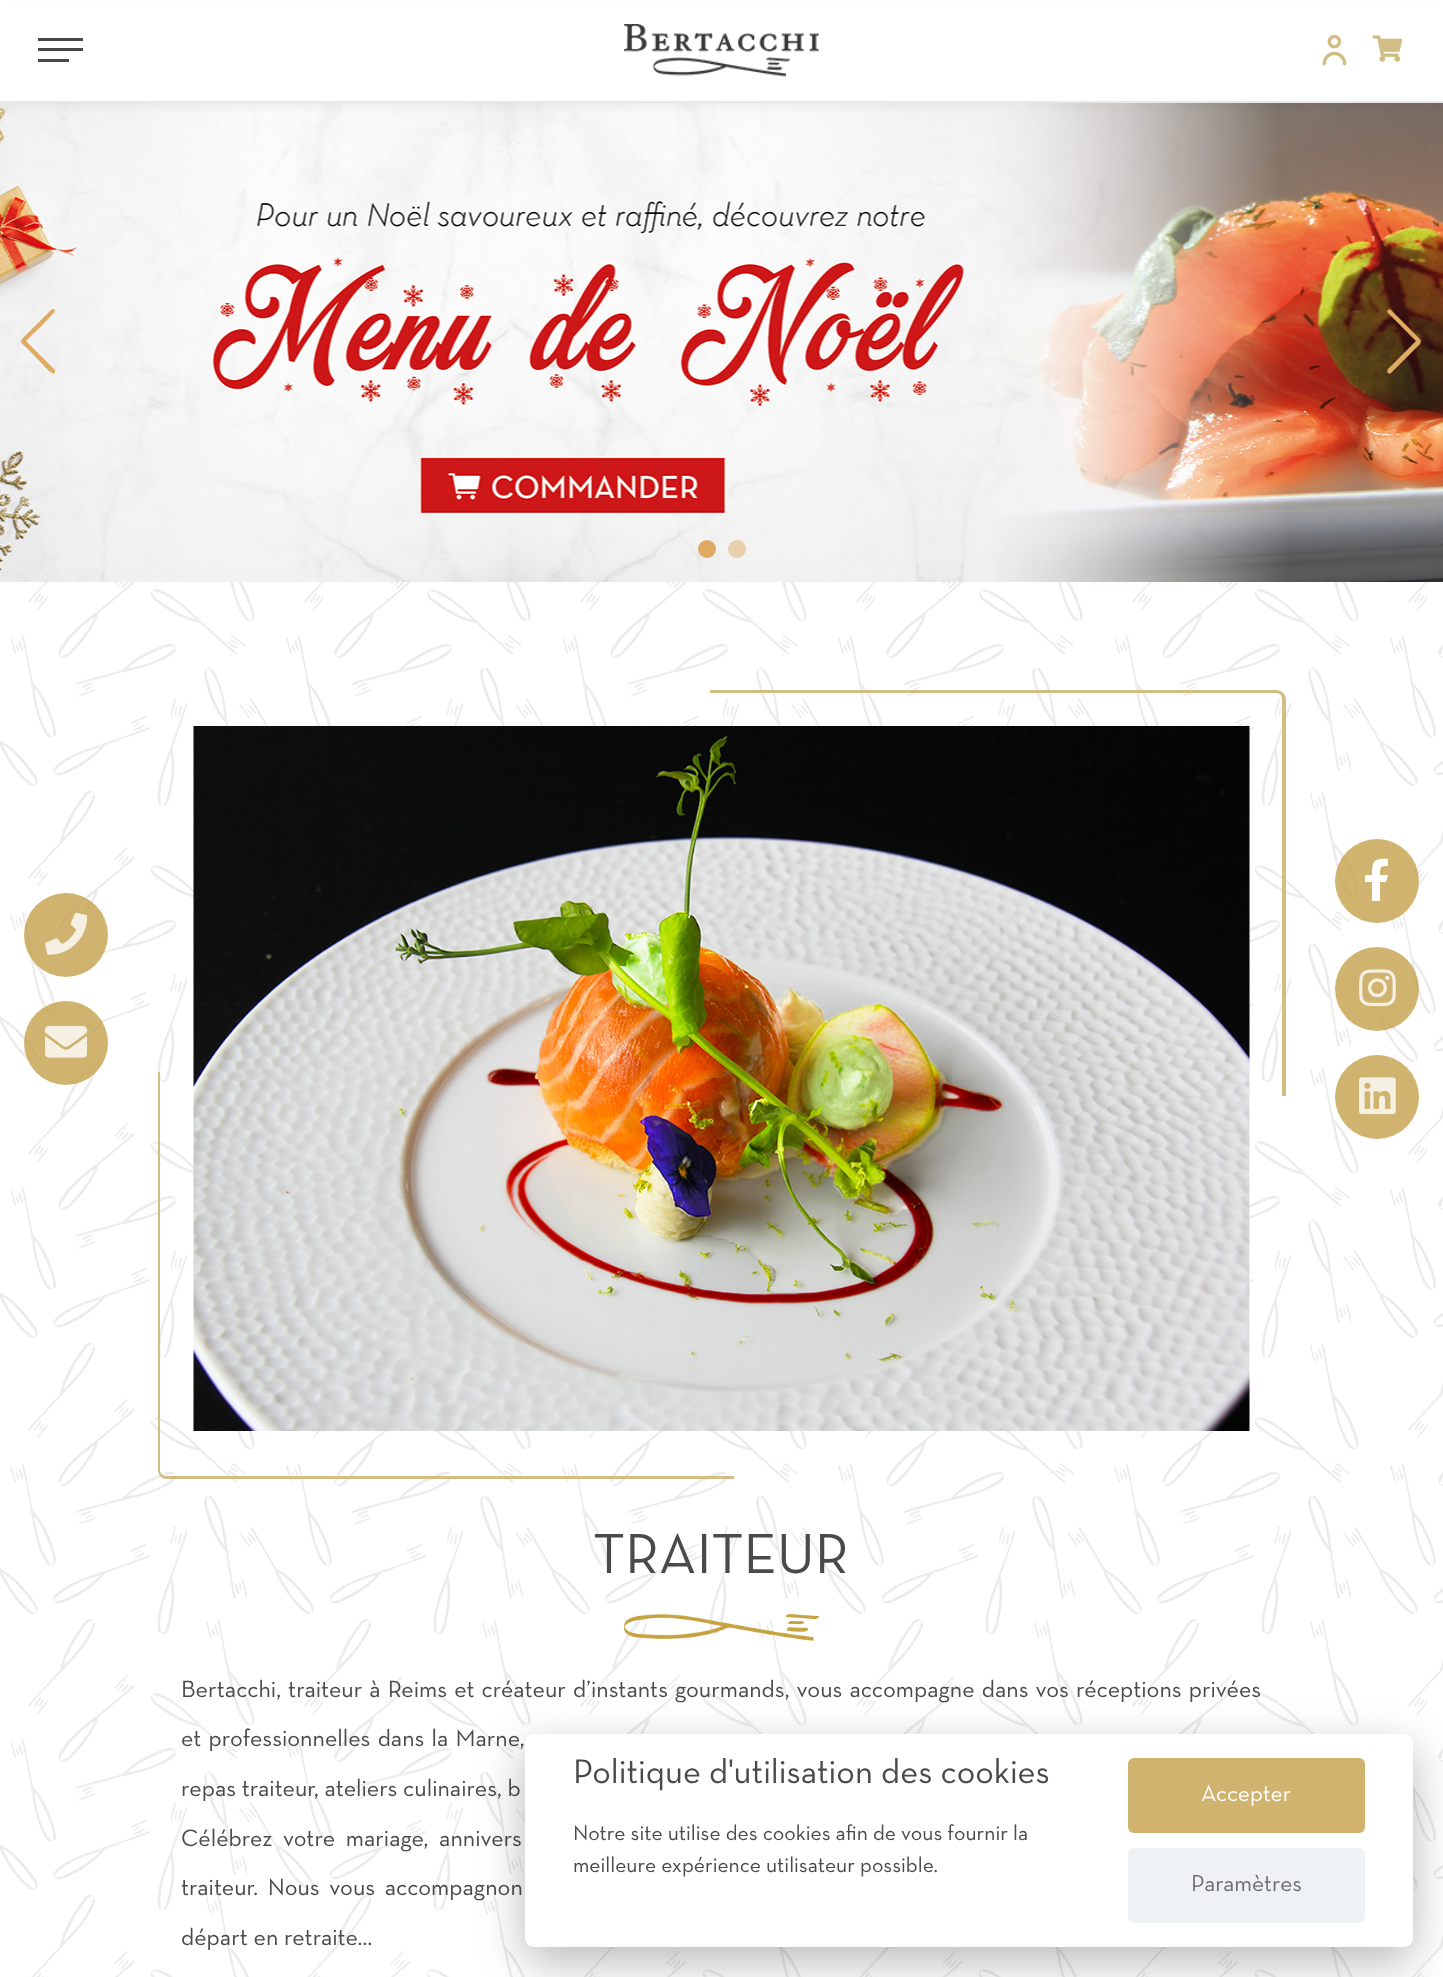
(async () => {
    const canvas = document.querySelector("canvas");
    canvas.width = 1443;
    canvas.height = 1977;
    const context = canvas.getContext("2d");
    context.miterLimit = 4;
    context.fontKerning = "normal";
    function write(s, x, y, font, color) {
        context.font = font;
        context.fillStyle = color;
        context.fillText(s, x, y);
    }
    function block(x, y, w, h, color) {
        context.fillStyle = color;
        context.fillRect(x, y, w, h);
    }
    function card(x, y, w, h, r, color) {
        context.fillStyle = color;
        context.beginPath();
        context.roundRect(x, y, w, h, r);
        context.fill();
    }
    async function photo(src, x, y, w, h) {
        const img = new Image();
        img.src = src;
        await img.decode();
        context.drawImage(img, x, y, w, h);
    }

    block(0, 0, 1443, 1977, "rgb(255, 255, 255)");
    await photo("media/1.png", 0, 582, 1443, 1395);
    await photo("media/5.png", 0, 103, 1443, 479);
    context.fillStyle = "rgba(0, 0, 0, 0.05)";
    context.filter = "blur(4.5px)";
    context.beginPath();
    context.rect(0, 5, 1443, 102);
    context.fill();
    context.filter = "none";
    block(0, 1, 1443, 100, "rgb(255, 255, 255)");
    block(0, 101, 1443, 2, "rgb(232, 232, 232)");
    block(38, 38, 45, 3, "rgb(72, 72, 72)");
    block(38, 48, 45, 3, "rgb(72, 72, 72)");
    block(38, 59, 31, 3, "rgb(72, 72, 72)");
    await photo("media/2.png", 624, 24, 195, 53);
    await photo("media/3.png", 1322, 34, 25, 32);
    await photo("media/4.png", 1372, 35, 31, 27);
    context.fillStyle = "rgb(223, 171, 99)";
    context.beginPath();
    context.moveTo(51, 310);
    context.bezierCurveTo(52, 308, 55, 309, 55, 311);
    context.bezierCurveTo(55, 313, 29, 338, 26, 341);
    context.lineTo(55, 370);
    context.lineTo(55, 372);
    context.bezierCurveTo(54, 376, 49, 371, 46, 368);
    context.lineTo(27, 348);
    context.bezierCurveTo(19, 341, 19, 342, 27, 334);
    context.closePath();
    context.fill();
    context.beginPath();
    context.moveTo(1388, 373);
    context.bezierCurveTo(1387, 372, 1387, 371, 1388, 369);
    context.lineTo(1416, 341);
    context.lineTo(1388, 313);
    context.bezierCurveTo(1387, 312, 1387, 311, 1388, 310);
    context.bezierCurveTo(1389, 309, 1390, 309, 1391, 310);
    context.lineTo(1420, 339);
    context.lineTo(1421, 341);
    context.lineTo(1420, 344);
    context.lineTo(1391, 373);
    context.bezierCurveTo(1390, 374, 1389, 374, 1388, 373);
    context.closePath();
    context.fill();
    context.beginPath();
    context.arc(707, 549, 9, 0, Math.PI * 2);
    context.fill();
    context.fillStyle = "rgba(223, 171, 99, 0.5)";
    context.beginPath();
    context.arc(737, 549, 9, 0, Math.PI * 2);
    context.fill();
    context.fillStyle = "rgba(198, 160, 76, 0.8)";
    context.beginPath();
    context.arc(66, 935, 42, 0, Math.PI * 2);
    context.fill();
    await photo("media/6.png", 45, 912, 43, 43);
    context.beginPath();
    context.arc(66, 1043, 42, 0, Math.PI * 2);
    context.fill();
    await photo("media/7.png", 45, 1026, 42, 32);
    context.beginPath();
    context.arc(1377, 881, 42, 0, Math.PI * 2);
    context.fill();
    context.fillStyle = "rgb(255, 255, 255)";
    context.beginPath();
    context.moveTo(1386, 882);
    context.lineTo(1380, 882);
    context.lineTo(1380, 901);
    context.lineTo(1372, 901);
    context.lineTo(1372, 882);
    context.lineTo(1365, 882);
    context.lineTo(1365, 875);
    context.lineTo(1372, 875);
    context.bezierCurveTo(1372, 861, 1374, 858, 1388, 859);
    context.lineTo(1388, 866);
    context.bezierCurveTo(1380, 866, 1380, 867, 1380, 875);
    context.lineTo(1388, 875);
    context.closePath();
    context.fill();
    context.fillStyle = "rgba(198, 160, 76, 0.8)";
    context.beginPath();
    context.arc(1377, 989, 42, 0, Math.PI * 2);
    context.fill();
    await photo("media/8.png", 1359, 969, 37, 38);
    context.fillStyle = "rgb(209, 179, 112)";
    context.beginPath();
    context.arc(1377, 1097, 42, 0, Math.PI * 2);
    context.fill();
    await photo("media/9.png", 1359, 1077, 37, 38);
    context.fillStyle = "rgb(210, 190, 133)";
    context.beginPath();
    context.moveTo(158, 1072);
    context.lineTo(734, 1072);
    context.lineTo(734, 1479);
    context.lineTo(166, 1479);
    context.bezierCurveTo(162, 1479, 158, 1475, 158, 1470);
    context.closePath();
    context.moveTo(160, 1072);
    context.lineTo(734, 1072);
    context.lineTo(734, 1476);
    context.lineTo(166, 1476);
    context.bezierCurveTo(163, 1476, 160, 1473, 160, 1470);
    context.closePath();
    context.fill("evenodd");
    context.beginPath();
    context.moveTo(710, 690);
    context.lineTo(1276, 690);
    context.bezierCurveTo(1281, 690, 1286, 694, 1286, 699);
    context.lineTo(1286, 1096);
    context.lineTo(710, 1096);
    context.closePath();
    context.moveTo(710, 693);
    context.lineTo(1276, 693);
    context.bezierCurveTo(1280, 693, 1282, 696, 1282, 699);
    context.lineTo(1282, 1096);
    context.lineTo(710, 1096);
    context.closePath();
    context.fill("evenodd");
    await photo("media/10.png", 193, 726, 1057, 705);
    write("TRAITEUR", 593, 1573, "57.5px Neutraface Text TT", "rgb(74, 74, 74)");
    await photo("media/11.png", 623, 1614, 197, 27);
    context.wordSpacing = "1.4px";
    write("Bertacchi, traiteur à Reims et créateur d’instants gourmands, vous accompagne dans vos réceptions privées", 181, 1697, "24px Neutraface Text TT", "rgb(74, 74, 74)");
    context.wordSpacing = "1.5px";
    write("et professionnelles dans la Marne,", 181, 1746, "24px Neutraface Text TT", "rgb(74, 74, 74)");
    context.wordSpacing = "0px";
    write("repas traiteur, ateliers culinaires, b", 181, 1796, "24px Neutraface Text TT", "rgb(74, 74, 74)");
    context.wordSpacing = "5px";
    write("Célébrez votre mariage, annivers", 181, 1846, "24px Neutraface Text TT", "rgb(74, 74, 74)");
    context.wordSpacing = "4px";
    write("traiteur. Nous vous accompagnon", 181, 1895, "24px Neutraface Text TT", "rgb(74, 74, 74)");
    context.wordSpacing = "0px";
    write("départ en retraite…", 181, 1945, "24px Neutraface Text TT", "rgb(74, 74, 74)");
    context.fillStyle = "rgba(2, 2, 3, 0.28)";
    context.filter = "blur(22.5px)";
    context.beginPath();
    context.roundRect(525, 1749, 888, 213, 9);
    context.fill();
    context.filter = "none";
    card(525, 1734, 888, 213, 9, "rgb(255, 255, 255)");
    write("Politique d'utilisation des cookies", 573, 1783, "34.75px Neutraface Text TT", "rgb(74, 74, 74)");
    write("Notre site utilise des cookies afin de vous fournir la", 573, 1840, "21.6px Neutraface Text TT", "rgb(74, 74, 74)");
    write("meilleure expérience utilisateur possible.", 573, 1872, "21.6px Neutraface Text TT", "rgb(74, 74, 74)");
    card(1128, 1758, 237, 75, 6, "rgb(209, 179, 112)");
    write("Accepter", 1201, 1801, "23.5px Neutraface Text TT", "rgb(255, 255, 255)");
    card(1128, 1848, 237, 75, 6, "rgb(238, 242, 245)");
    write("Paramètres", 1191, 1891, "23.5px Neutraface Text TT", "rgb(110, 110, 110)");
})();
